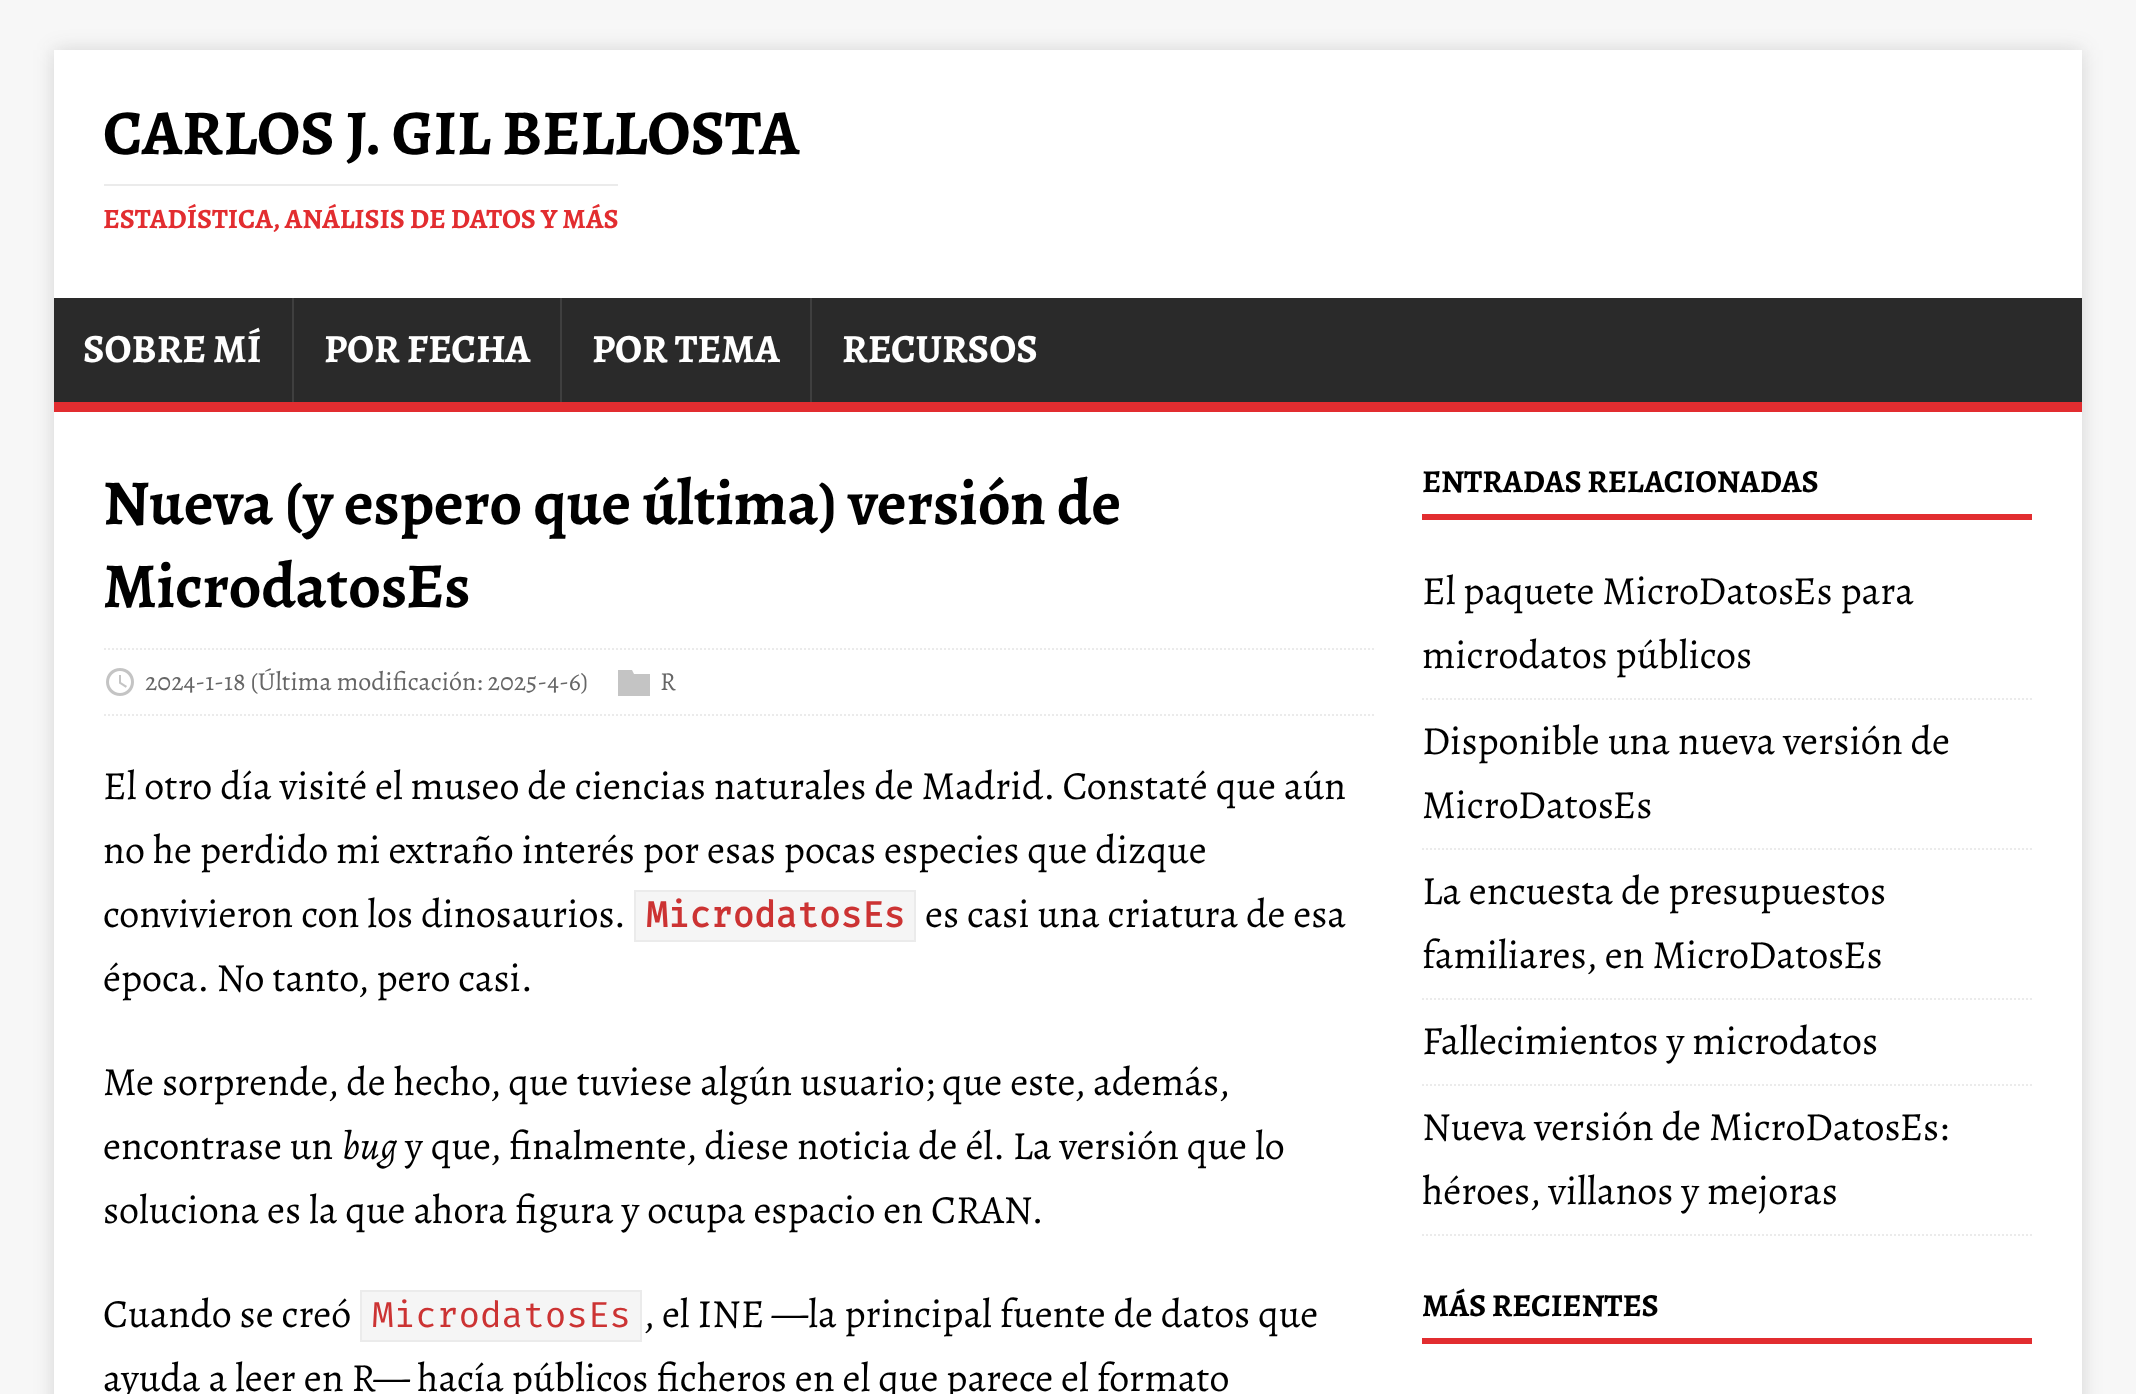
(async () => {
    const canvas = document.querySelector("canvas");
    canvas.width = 2136;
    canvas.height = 1394;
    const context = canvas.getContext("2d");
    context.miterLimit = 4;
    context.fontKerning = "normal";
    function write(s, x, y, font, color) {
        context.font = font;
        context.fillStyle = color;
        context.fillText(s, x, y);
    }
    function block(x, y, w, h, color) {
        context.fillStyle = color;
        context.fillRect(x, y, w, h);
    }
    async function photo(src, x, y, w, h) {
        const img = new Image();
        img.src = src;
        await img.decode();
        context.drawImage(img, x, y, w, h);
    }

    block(0, 0, 2136, 1394, "rgb(247, 247, 247)");
    context.fillStyle = "rgba(50, 50, 50, 0.17)";
    context.filter = "blur(10px)";
    context.beginPath();
    context.rect(54, 50, 2028, 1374);
    context.fill();
    context.filter = "none";
    block(54, 50, 2028, 248, "rgb(255, 255, 255)");
    write("CARLOS J. GIL BELLOSTA", 103, 154, "bold 64px Alegreya", "rgb(0, 0, 0)");
    block(104, 184, 514, 2, "rgb(235, 235, 235)");
    write("ESTADÍSTICA, ANÁLISIS DE DATOS Y MÁS", 103, 228, "bold 28px Alegreya", "rgb(226, 45, 48)");
    block(54, 402, 2028, 10, "rgb(226, 45, 48)");
    block(54, 298, 2028, 104, "rgb(42, 42, 42)");
    write("SOBRE MÍ", 83, 362, "bold 40px Alegreya", "rgb(255, 255, 255)");
    block(292, 298, 2, 104, "rgb(63, 63, 63)");
    write("POR FECHA", 324, 362, "bold 40px Alegreya", "rgb(255, 255, 255)");
    block(560, 298, 2, 104, "rgb(63, 63, 63)");
    write("POR TEMA", 592, 362, "bold 40px Alegreya", "rgb(255, 255, 255)");
    block(810, 298, 2, 104, "rgb(63, 63, 63)");
    write("RECURSOS", 842, 362, "bold 40px Alegreya", "rgb(255, 255, 255)");
    block(54, 412, 2028, 982, "rgb(255, 255, 255)");
    write("Nueva (y espero que última) versión de", 103, 524, "bold 64px Alegreya", "rgb(0, 0, 0)");
    write("MicrodatosEs", 103, 607, "bold 64px Alegreya", "rgb(0, 0, 0)");
    context.beginPath();
    context.moveTo(104, 649);
    context.lineTo(1374, 649);
    context.strokeStyle = "rgb(235, 235, 235)";
    context.lineWidth = 2;
    context.setLineDash([2, 2]);
    context.stroke();
    context.beginPath();
    context.moveTo(104, 715);
    context.lineTo(1374, 715);
    context.stroke();
    await photo("media/1.png", 106, 668, 28, 28);
    write("2024-1-18 (Última modificación: 2025-4-6)", 145, 690, "26px Alegreya", "rgb(102, 102, 102)");
    write("R", 660, 690, "26px Alegreya", "rgb(102, 102, 102)");
    context.fillStyle = "rgb(196, 196, 196)";
    context.beginPath();
    context.moveTo(632, 670);
    context.lineTo(634, 674);
    context.lineTo(650, 674);
    context.lineTo(650, 696);
    context.lineTo(618, 696);
    context.lineTo(618, 670);
    context.closePath();
    context.fill();
    write("El otro día visité el museo de ciencias naturales de Madrid. Constaté que aún", 103, 799, "40px Alegreya", "rgb(0, 0, 0)");
    write("no he perdido mi extraño interés por esas pocas especies que dizque", 103, 863, "40px Alegreya", "rgb(0, 0, 0)");
    write("convivieron con los dinosaurios.", 103, 927, "40px Alegreya", "rgb(0, 0, 0)");
    context.fillStyle = "rgb(245, 245, 245)";
    context.beginPath();
    context.rect(635, 891, 280, 50);
    context.fill();
    context.setLineDash([]);
    context.stroke();
    write("MicrodatosEs", 646, 927, "bold 36px Fira Code", "rgb(204, 51, 51)");
    write("es casi una criatura de esa", 925, 927, "40px Alegreya", "rgb(0, 0, 0)");
    write("época. No tanto, pero casi.", 103, 991, "40px Alegreya", "rgb(0, 0, 0)");
    write("Me sorprende, de hecho, que tuviese algún usuario; que este, además,", 103, 1095, "40px Alegreya", "rgb(0, 0, 0)");
    write("encontrase un", 103, 1159, "40px Alegreya", "rgb(0, 0, 0)");
    write("bug", 342, 1159, "italic 40px Alegreya", "rgb(0, 0, 0)");
    write("y que, finalmente, diese noticia de él. La versión que lo", 405, 1159, "40px Alegreya", "rgb(0, 0, 0)");
    write("soluciona es la que ahora figura y ocupa espacio en CRAN.", 103, 1223, "40px Alegreya", "rgb(0, 0, 0)");
    write("Cuando se creó", 103, 1327, "40px Alegreya", "rgb(0, 0, 0)");
    context.fillStyle = "rgb(245, 245, 245)";
    context.beginPath();
    context.rect(361, 1291, 280, 50);
    context.fill();
    context.stroke();
    write("MicrodatosEs", 372, 1327, "300 36px Fira Code", "rgb(204, 51, 51)");
    write(", el INE —la principal fuente de datos que", 643, 1327, "40px Alegreya", "rgb(0, 0, 0)");
    write("ayuda a leer en R— hacía públicos ficheros en el que parece el formato", 103, 1391, "40px Alegreya", "rgb(0, 0, 0)");
    block(1422, 514, 610, 6, "rgb(226, 45, 48)");
    write("ENTRADAS RELACIONADAS", 1422, 492, "bold 32px Alegreya", "rgb(0, 0, 0)");
    context.beginPath();
    context.moveTo(1422, 699);
    context.lineTo(2032, 699);
    context.setLineDash([2, 2]);
    context.stroke();
    write("El paquete MicroDatosEs para", 1422, 604, "40px Alegreya", "rgb(0, 0, 0)");
    write("microdatos públicos", 1422, 668, "40px Alegreya", "rgb(0, 0, 0)");
    context.beginPath();
    context.moveTo(1422, 849);
    context.lineTo(2032, 849);
    context.stroke();
    write("Disponible una nueva versión de", 1422, 754, "40px Alegreya", "rgb(0, 0, 0)");
    write("MicroDatosEs", 1422, 818, "40px Alegreya", "rgb(0, 0, 0)");
    context.beginPath();
    context.moveTo(1422, 999);
    context.lineTo(2032, 999);
    context.stroke();
    write("La encuesta de presupuestos", 1422, 904, "40px Alegreya", "rgb(0, 0, 0)");
    write("familiares, en MicroDatosEs", 1422, 968, "40px Alegreya", "rgb(0, 0, 0)");
    context.beginPath();
    context.moveTo(1422, 1085);
    context.lineTo(2032, 1085);
    context.stroke();
    write("Fallecimientos y microdatos", 1422, 1054, "40px Alegreya", "rgb(0, 0, 0)");
    context.beginPath();
    context.moveTo(1422, 1235);
    context.lineTo(2032, 1235);
    context.stroke();
    write("Nueva versión de MicroDatosEs:", 1422, 1140, "40px Alegreya", "rgb(0, 0, 0)");
    write("héroes, villanos y mejoras", 1422, 1204, "40px Alegreya", "rgb(0, 0, 0)");
    block(1422, 1338, 610, 6, "rgb(226, 45, 48)");
    write("MÁS RECIENTES", 1422, 1316, "bold 32px Alegreya", "rgb(0, 0, 0)");
})();
